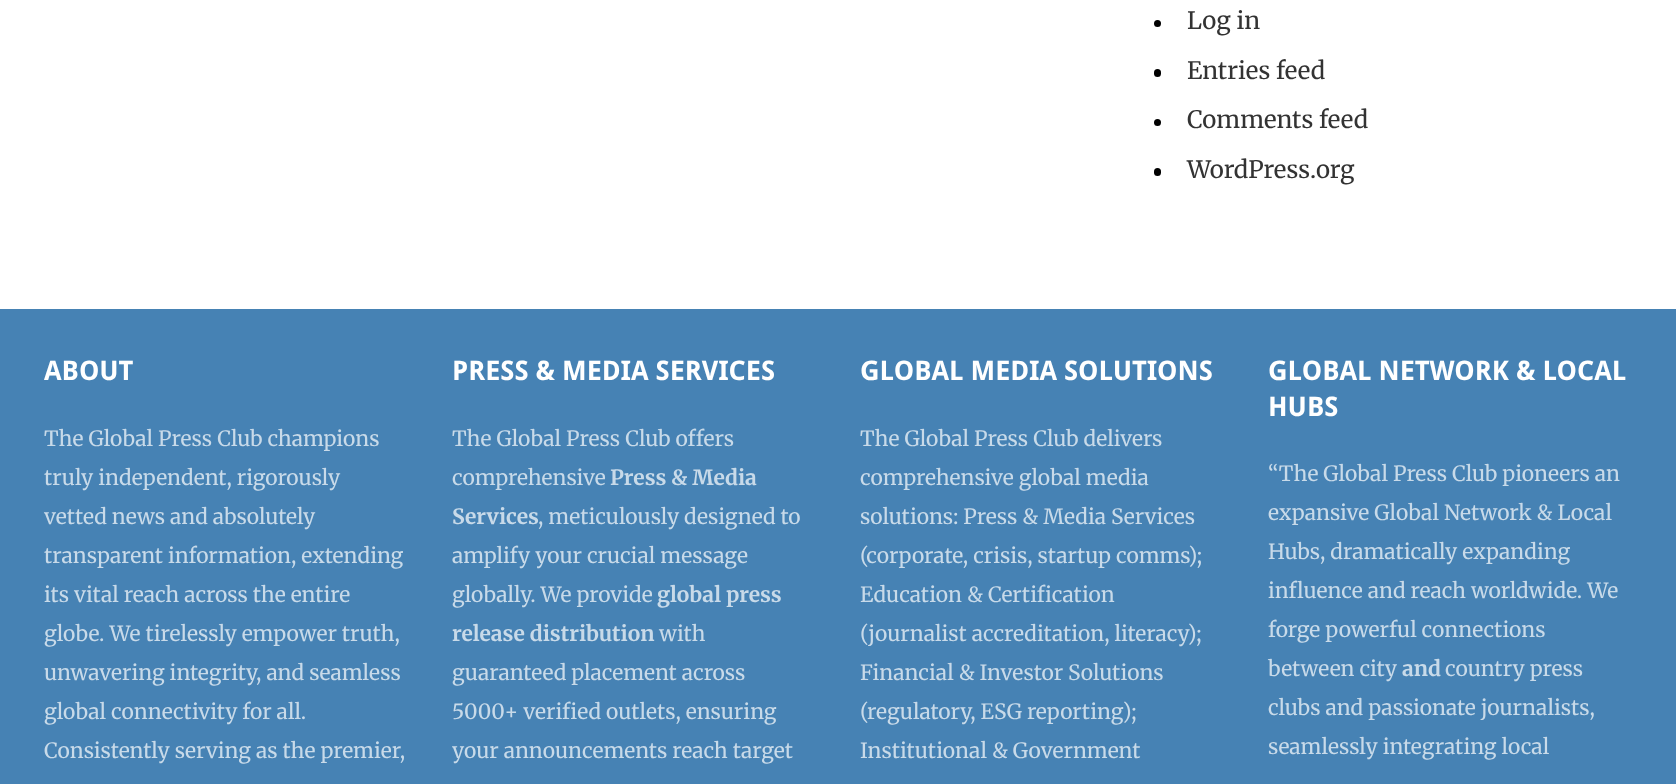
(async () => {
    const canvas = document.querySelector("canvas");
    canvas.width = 1676;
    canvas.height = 784;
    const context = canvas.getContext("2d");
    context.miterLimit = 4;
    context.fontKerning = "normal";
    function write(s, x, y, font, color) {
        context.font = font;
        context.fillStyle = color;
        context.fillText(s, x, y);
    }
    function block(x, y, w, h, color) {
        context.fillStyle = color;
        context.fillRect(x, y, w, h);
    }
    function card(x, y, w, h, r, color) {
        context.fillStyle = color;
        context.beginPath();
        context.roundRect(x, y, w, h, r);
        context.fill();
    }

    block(0, 0, 1676, 784, "rgb(255, 255, 255)");
    context.fillStyle = "rgb(0, 0, 0)";
    context.beginPath();
    context.arc(1157.5, 23.5, 3.5, 0, Math.PI * 2);
    context.fill();
    write("Log in", 1187, 29, "24px Merriweather", "rgb(51, 51, 51)");
    card(1154, 69, 7, 8, 3.5, "rgb(0, 0, 0)");
    write("Entries feed", 1187, 79, "24px Merriweather", "rgb(51, 51, 51)");
    context.fillStyle = "rgb(0, 0, 0)";
    context.beginPath();
    context.arc(1157.5, 122.5, 3.5, 0, Math.PI * 2);
    context.fill();
    write("Comments feed", 1187, 128, "24px Merriweather", "rgb(51, 51, 51)");
    card(1154, 168, 7, 8, 3.5, "rgb(0, 0, 0)");
    write("WordPress.org", 1187, 178, "24px Merriweather", "rgb(51, 51, 51)");
    block(0, 309, 1676, 475, "rgb(70, 130, 180)");
    write("ABOUT", 44, 380, "bold 27px Droid Sans", "rgb(255, 255, 255)");
    write("The Global Press Club champions", 44, 446, "21px Merriweather", "rgb(200, 218, 233)");
    write("truly independent, rigorously", 44, 485, "21px Merriweather", "rgb(200, 218, 233)");
    write("vetted news and absolutely", 44, 524, "21px Merriweather", "rgb(200, 218, 233)");
    write("transparent information, extending", 44, 563, "21px Merriweather", "rgb(200, 218, 233)");
    write("its vital reach across the entire", 44, 602, "21px Merriweather", "rgb(200, 218, 233)");
    write("globe. We tirelessly empower truth,", 44, 641, "21px Merriweather", "rgb(200, 218, 233)");
    write("unwavering integrity, and seamless", 44, 680, "21px Merriweather", "rgb(200, 218, 233)");
    write("global connectivity for all.", 44, 719, "21px Merriweather", "rgb(200, 218, 233)");
    write("Consistently serving as the premier,", 44, 758, "21px Merriweather", "rgb(200, 218, 233)");
    write("PRESS & MEDIA SERVICES", 452, 380, "bold 27px Droid Sans", "rgb(255, 255, 255)");
    write("The Global Press Club offers", 452, 446, "21px Merriweather", "rgb(200, 218, 233)");
    write("comprehensive", 452, 485, "21px Merriweather", "rgb(200, 218, 233)");
    write("Press & Media", 610, 485, "bold 21px Merriweather", "rgb(200, 218, 233)");
    write("Services", 452, 524, "bold 21px Merriweather", "rgb(200, 218, 233)");
    write(", meticulously designed to", 538, 524, "21px Merriweather", "rgb(200, 218, 233)");
    write("amplify your crucial message", 452, 563, "21px Merriweather", "rgb(200, 218, 233)");
    write("globally. We provide", 452, 602, "21px Merriweather", "rgb(200, 218, 233)");
    write("global press", 657, 602, "bold 21px Merriweather", "rgb(200, 218, 233)");
    write("release distribution", 452, 641, "bold 21px Merriweather", "rgb(200, 218, 233)");
    write("with", 659, 641, "21px Merriweather", "rgb(200, 218, 233)");
    write("guaranteed placement across", 452, 680, "21px Merriweather", "rgb(200, 218, 233)");
    write("5000+ verified outlets, ensuring", 452, 719, "21px Merriweather", "rgb(200, 218, 233)");
    write("your announcements reach target", 452, 758, "21px Merriweather", "rgb(200, 218, 233)");
    write("GLOBAL MEDIA SOLUTIONS", 860, 380, "bold 27px Droid Sans", "rgb(255, 255, 255)");
    write("The Global Press Club delivers", 860, 446, "21px Merriweather", "rgb(200, 218, 233)");
    write("comprehensive global media", 860, 485, "21px Merriweather", "rgb(200, 218, 233)");
    write("solutions: Press & Media Services", 860, 524, "21px Merriweather", "rgb(200, 218, 233)");
    write("(corporate, crisis, startup comms);", 860, 563, "21px Merriweather", "rgb(200, 218, 233)");
    write("Education & Certification", 860, 602, "21px Merriweather", "rgb(200, 218, 233)");
    write("(journalist accreditation, literacy);", 860, 641, "21px Merriweather", "rgb(200, 218, 233)");
    write("Financial & Investor Solutions", 860, 680, "21px Merriweather", "rgb(200, 218, 233)");
    write("(regulatory, ESG reporting);", 860, 719, "21px Merriweather", "rgb(200, 218, 233)");
    write("Institutional & Government", 860, 758, "21px Merriweather", "rgb(200, 218, 233)");
    write("GLOBAL NETWORK & LOCAL", 1268, 380, "bold 27px Droid Sans", "rgb(255, 255, 255)");
    write("HUBS", 1268, 416, "bold 27px Droid Sans", "rgb(255, 255, 255)");
    write("“The Global Press Club pioneers an", 1268, 481, "21px Merriweather", "rgb(200, 218, 233)");
    write("expansive Global Network & Local", 1268, 520, "21px Merriweather", "rgb(200, 218, 233)");
    write("Hubs, dramatically expanding", 1268, 559, "21px Merriweather", "rgb(200, 218, 233)");
    write("influence and reach worldwide. We", 1268, 598, "21px Merriweather", "rgb(200, 218, 233)");
    write("forge powerful connections", 1268, 637, "21px Merriweather", "rgb(200, 218, 233)");
    write("between city", 1268, 676, "21px Merriweather", "rgb(200, 218, 233)");
    write("and", 1402, 676, "bold 21px Merriweather", "rgb(200, 218, 233)");
    write("country press", 1445, 676, "21px Merriweather", "rgb(200, 218, 233)");
    write("clubs and passionate journalists,", 1268, 715, "21px Merriweather", "rgb(200, 218, 233)");
    write("seamlessly integrating local", 1268, 754, "21px Merriweather", "rgb(200, 218, 233)");
})();
